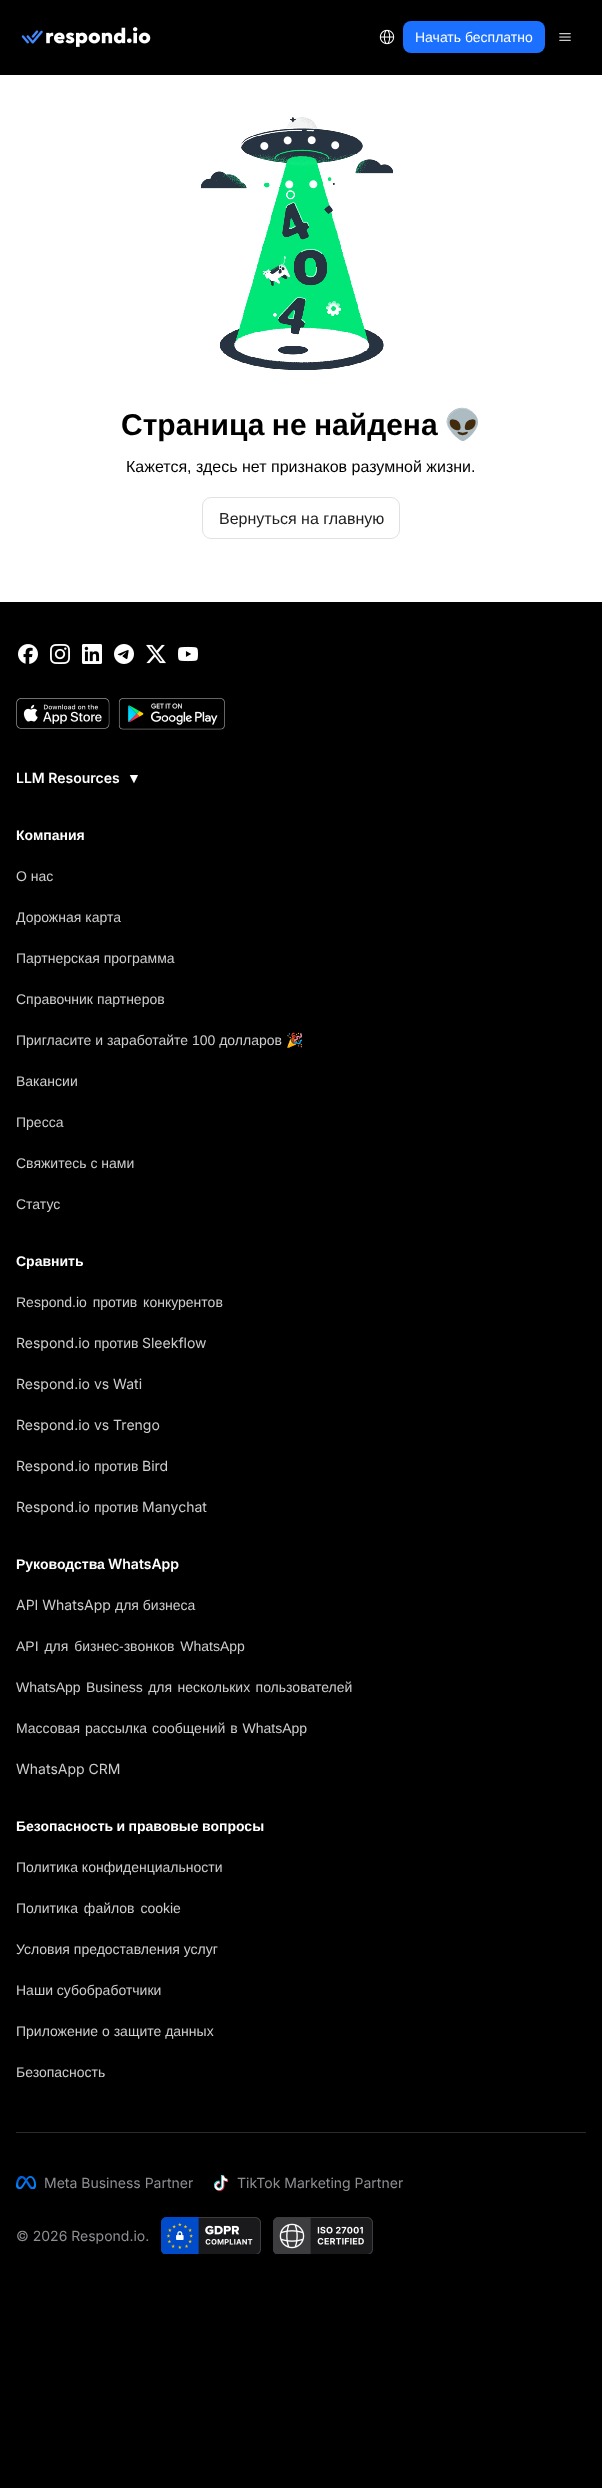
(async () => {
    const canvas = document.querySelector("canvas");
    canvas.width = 602;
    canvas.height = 2488;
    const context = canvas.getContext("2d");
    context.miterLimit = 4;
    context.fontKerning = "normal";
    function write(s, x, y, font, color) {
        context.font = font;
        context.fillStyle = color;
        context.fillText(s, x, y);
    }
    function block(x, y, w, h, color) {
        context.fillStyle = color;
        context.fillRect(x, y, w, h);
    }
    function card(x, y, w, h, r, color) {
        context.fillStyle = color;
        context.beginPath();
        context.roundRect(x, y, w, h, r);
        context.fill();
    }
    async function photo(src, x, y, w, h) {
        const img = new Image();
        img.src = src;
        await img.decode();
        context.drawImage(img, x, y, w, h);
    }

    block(0, 0, 602, 2488, "rgb(0, 0, 0)");
    await photo("media/1.png", 21, 27, 130, 20);
    await photo("media/2.png", 379, 29, 16, 16);
    card(403, 21, 142, 32, 8, "rgb(27, 112, 255)");
    write("Начать бесплатно", 415, 42, "14px Liberation Sans", "rgb(255, 255, 255)");
    await photo("media/3.png", 559, 33, 12, 8);
    block(0, 75, 602, 527, "rgb(255, 255, 255)");
    await photo("media/4.png", 200, 117, 193, 253);
    context.wordSpacing = "-1px";
    write("Страница не найдена", 121, 435, "bold 30px Liberation Sans", "rgb(0, 0, 0)");
    context.wordSpacing = "0px";
    write("👽", 444, 435, "bold 30px Noto Color Emoji", "rgb(0, 0, 0)");
    write("Кажется, здесь нет признаков разумной жизни.", 126, 472, "16px Liberation Sans", "rgb(0, 0, 0)");
    context.beginPath();
    context.roundRect(202.5, 497.5, 197, 41, 8.5);
    context.strokeStyle = "rgb(225, 225, 227)";
    context.stroke();
    write("Вернуться на главную", 219, 524, "16px Liberation Sans", "rgb(33, 33, 35)");
    await photo("media/5.png", 18, 644, 20, 20);
    await photo("media/6.png", 50, 644, 20, 20);
    await photo("media/7.png", 82, 644, 20, 20);
    await photo("media/8.png", 114, 644, 20, 20);
    await photo("media/9.png", 146, 644, 20, 20);
    await photo("media/10.png", 178, 646, 20, 16);
    await photo("media/11.png", 16, 698, 94, 31);
    await photo("media/12.png", 118, 698, 107, 32);
    write("LLM Resources", 16, 783, "600 14px Inter", "rgb(255, 255, 255)");
    write("▼", 127, 783, "bold 14px Liberation Sans", "rgb(255, 255, 255)");
    write("Компания", 16, 840, "bold 14px Liberation Sans", "rgb(255, 255, 255)");
    write("О нас", 16, 881, "14px Liberation Sans", "rgb(205, 205, 207)");
    write("Дорожная карта", 16, 922, "14px Liberation Sans", "rgb(205, 205, 207)");
    write("Партнерская программа", 16, 963, "14px Liberation Sans", "rgb(205, 205, 207)");
    write("Справочник партнеров", 16, 1004, "14px Liberation Sans", "rgb(205, 205, 207)");
    write("Пригласите и заработайте 100 долларов", 16, 1045, "14px Liberation Sans", "rgb(205, 205, 207)");
    write("🎉", 286, 1045, "14px Noto Color Emoji", "rgb(205, 205, 207)");
    write("Вакансии", 16, 1086, "14px Liberation Sans", "rgb(205, 205, 207)");
    write("Пресса", 16, 1127, "14px Liberation Sans", "rgb(205, 205, 207)");
    write("Свяжитесь с нами", 16, 1168, "14px Liberation Sans", "rgb(205, 205, 207)");
    write("Статус", 16, 1209, "14px Liberation Sans", "rgb(205, 205, 207)");
    write("Сравнить", 16, 1266, "bold 14px Liberation Sans", "rgb(255, 255, 255)");
    context.wordSpacing = "2px";
    write("Respond.io против конкурентов", 16, 1307, "14px Liberation Sans", "rgb(205, 205, 207)");
    context.wordSpacing = "0px";
    write("Respond.io", 16, 1348, "14px Inter", "rgb(205, 205, 207)");
    write("против", 94, 1348, "14px Liberation Sans", "rgb(205, 205, 207)");
    write("Sleekflow", 142, 1348, "14px Inter", "rgb(205, 205, 207)");
    write("Respond.io vs Wati", 16, 1389, "14px Inter", "rgb(205, 205, 207)");
    write("Respond.io vs Trengo", 16, 1430, "14px Inter", "rgb(205, 205, 207)");
    write("Respond.io", 16, 1471, "14px Inter", "rgb(205, 205, 207)");
    write("против", 94, 1471, "14px Liberation Sans", "rgb(205, 205, 207)");
    write("Bird", 142, 1471, "14px Inter", "rgb(205, 205, 207)");
    write("Respond.io", 16, 1512, "14px Inter", "rgb(205, 205, 207)");
    write("против", 94, 1512, "14px Liberation Sans", "rgb(205, 205, 207)");
    write("Manychat", 142, 1512, "14px Inter", "rgb(205, 205, 207)");
    write("Руководства", 16, 1569, "bold 14px Liberation Sans", "rgb(255, 255, 255)");
    write("WhatsApp", 108, 1569, "600 14px Inter", "rgb(255, 255, 255)");
    write("API WhatsApp", 16, 1610, "14px Inter", "rgb(205, 205, 207)");
    write("для бизнеса", 115, 1610, "14px Liberation Sans", "rgb(205, 205, 207)");
    context.wordSpacing = "2px";
    write("API для бизнес-звонков WhatsApp", 16, 1651, "14px Liberation Sans", "rgb(205, 205, 207)");
    context.wordSpacing = "1.5px";
    write("WhatsApp Business для нескольких пользователей", 16, 1692, "14px Liberation Sans", "rgb(205, 205, 207)");
    context.wordSpacing = "1px";
    write("Массовая рассылка сообщений в WhatsApp", 16, 1733, "14px Liberation Sans", "rgb(205, 205, 207)");
    context.wordSpacing = "0px";
    write("WhatsApp CRM", 16, 1774, "14px Inter", "rgb(205, 205, 207)");
    context.wordSpacing = "-0.5px";
    write("Безопасность и правовые вопросы", 16, 1831, "bold 14px Liberation Sans", "rgb(255, 255, 255)");
    context.wordSpacing = "0px";
    write("Политика конфиденциальности", 16, 1872, "14px Liberation Sans", "rgb(205, 205, 207)");
    context.wordSpacing = "2px";
    write("Политика файлов cookie", 16, 1913, "14px Liberation Sans", "rgb(205, 205, 207)");
    context.wordSpacing = "0px";
    write("Условия предоставления услуг", 16, 1954, "14px Liberation Sans", "rgb(205, 205, 207)");
    write("Наши субобработчики", 16, 1995, "14px Liberation Sans", "rgb(205, 205, 207)");
    write("Приложение о защите данных", 16, 2036, "14px Liberation Sans", "rgb(205, 205, 207)");
    write("Безопасность", 16, 2077, "14px Liberation Sans", "rgb(205, 205, 207)");
    block(16, 2132, 570, 1, "rgb(43, 43, 44)");
    await photo("media/13.png", 16, 2176, 20, 13);
    write("Meta Business Partner", 44, 2188, "14px Inter", "rgb(142, 142, 147)");
    await photo("media/14.png", 213, 2175, 16, 16);
    write("TikTok Marketing Partner", 237, 2188, "14px Inter", "rgb(142, 142, 147)");
    write("© 2026 Respond.io.", 16, 2241, "14px Inter", "rgb(142, 142, 147)");
    await photo("media/15.png", 161, 2217, 100, 37);
    await photo("media/16.png", 273, 2217, 100, 37);
})();
